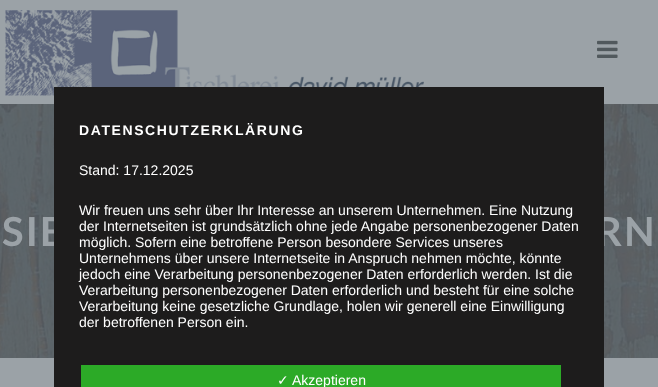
(async () => {
    const canvas = document.querySelector("canvas");
    canvas.width = 658;
    canvas.height = 387;
    const context = canvas.getContext("2d");
    context.miterLimit = 4;
    context.fontKerning = "normal";
    function write(s, x, y, font, color) {
        context.font = font;
        context.fillStyle = color;
        context.fillText(s, x, y);
    }
    function block(x, y, w, h, color) {
        context.fillStyle = color;
        context.fillRect(x, y, w, h);
    }
    async function photo(src, x, y, w, h) {
        const img = new Image();
        img.src = src;
        await img.decode();
        context.drawImage(img, x, y, w, h);
    }

    block(0, 0, 658, 387, "rgb(155, 162, 167)");
    await photo("media/1.png", 5, 10, 419, 86);
    await photo("media/2.png", 597, 40, 21, 18);
    await photo("media/3.png", 0, 104, 658, 254);
    context.letterSpacing = "2px";
    write("SIE", 2, 246, "bold 40px Lato", "rgb(155, 162, 167)");
    write("RN", 596, 246, "bold 40px Lato", "rgb(155, 162, 167)");
    block(54, 87, 550, 300, "rgb(29, 28, 28)");
    context.letterSpacing = "1.6px";
    write("DATENSCHUTZERKLÄRUNG", 79, 135, "bold 14px Liberation Sans", "rgb(255, 255, 255)");
    context.letterSpacing = "0px";
    write("Stand: 17.12.2025", 79, 175, "14px Liberation Sans", "rgb(255, 255, 255)");
    write("Wir freuen uns sehr über Ihr Interesse an unserem Unternehmen. Eine Nutzung", 79, 215, "14px Liberation Sans", "rgb(255, 255, 255)");
    write("der Internetseiten ist grundsätzlich ohne jede Angabe personenbezogener Daten", 79, 231, "14px Liberation Sans", "rgb(255, 255, 255)");
    write("möglich. Sofern eine betroffene Person besondere Services unseres", 79, 247, "14px Liberation Sans", "rgb(255, 255, 255)");
    write("Unternehmens über unsere Internetseite in Anspruch nehmen möchte, könnte", 79, 263, "14px Liberation Sans", "rgb(255, 255, 255)");
    write("jedoch eine Verarbeitung personenbezogener Daten erforderlich werden. Ist die", 79, 279, "14px Liberation Sans", "rgb(255, 255, 255)");
    write("Verarbeitung personenbezogener Daten erforderlich und besteht für eine solche", 79, 295, "14px Liberation Sans", "rgb(255, 255, 255)");
    write("Verarbeitung keine gesetzliche Grundlage, holen wir generell eine Einwilligung", 79, 311, "14px Liberation Sans", "rgb(255, 255, 255)");
    write("der betroffenen Person ein.", 79, 327, "14px Liberation Sans", "rgb(255, 255, 255)");
    block(81, 365, 480, 22, "rgb(44, 170, 39)");
    write("✓", 277, 385, "14px DejaVu Sans", "rgb(255, 255, 255)");
    write("Akzeptieren", 292, 385, "14px Liberation Sans", "rgb(255, 255, 255)");
})();
